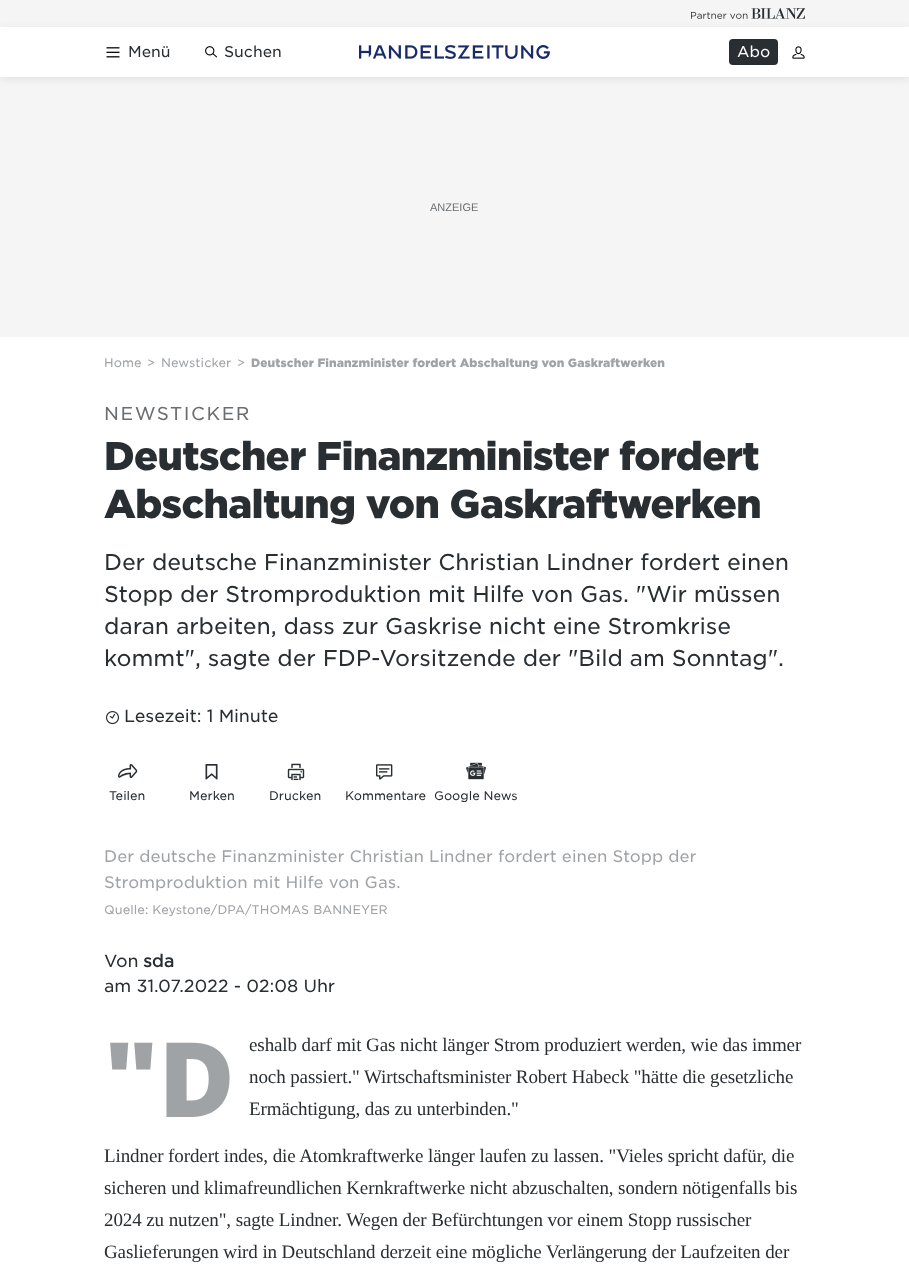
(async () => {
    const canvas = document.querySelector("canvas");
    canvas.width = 909;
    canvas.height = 1285;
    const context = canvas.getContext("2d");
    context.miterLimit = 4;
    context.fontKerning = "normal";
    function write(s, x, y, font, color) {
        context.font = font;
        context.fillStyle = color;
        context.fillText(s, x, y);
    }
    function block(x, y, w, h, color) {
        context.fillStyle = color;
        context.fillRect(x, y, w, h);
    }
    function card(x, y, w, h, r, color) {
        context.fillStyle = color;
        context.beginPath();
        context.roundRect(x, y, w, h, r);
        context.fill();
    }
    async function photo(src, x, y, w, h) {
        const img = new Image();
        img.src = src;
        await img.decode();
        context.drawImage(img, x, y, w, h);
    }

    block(0, 0, 909, 1285, "rgb(255, 255, 255)");
    block(0, 0, 909, 27, "rgb(245, 245, 245)");
    block(0, 77, 909, 260, "rgb(245, 245, 245)");
    context.save();
    context.beginPath();
    context.moveTo(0, 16);
    context.lineTo(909, 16);
    context.lineTo(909, 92);
    context.lineTo(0, 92);
    context.closePath();
    context.moveTo(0, 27);
    context.lineTo(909, 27);
    context.lineTo(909, 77);
    context.lineTo(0, 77);
    context.closePath();
    context.clip("evenodd");
    context.fillStyle = "rgba(0, 0, 0, 0.08)";
    context.filter = "blur(4px)";
    context.beginPath();
    context.rect(0, 29, 909, 50);
    context.fill();
    context.filter = "none";
    context.restore();
    await photo("media/1.png", 691, 8, 114, 11);
    await photo("media/2.png", 106, 47, 14, 11);
    write("Menü", 128, 57, "15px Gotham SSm", "rgb(41, 46, 50)");
    await photo("media/3.png", 205, 46, 13, 12);
    write("Suchen", 224, 57, "15px Gotham SSm", "rgb(41, 46, 50)");
    await photo("media/4.png", 359, 45, 191, 14);
    card(729, 39, 49, 26, 4, "rgb(41, 46, 50)");
    write("Abo", 737, 57, "15px Gotham SSm", "rgb(255, 255, 255)");
    await photo("media/5.png", 792, 46, 13, 13);
    write("ANZEIGE", 430, 211, "11px Liberation Sans", "rgb(106, 110, 113)");
    context.letterSpacing = "0.08px";
    write("Home", 104, 367, "12px Gotham SSm", "rgb(160, 163, 166)");
    write(">", 147, 367, "12px Gotham SSm", "rgb(160, 163, 166)");
    write("Newsticker", 161, 367, "12px Gotham SSm", "rgb(160, 163, 166)");
    write(">", 237, 367, "12px Gotham SSm", "rgb(160, 163, 166)");
    write("Deutscher Finanzminister fordert Abschaltung von Gaskraftwerken", 251, 367, "900 12px Gotham", "rgb(160, 163, 166)");
    context.letterSpacing = "1.5px";
    write("NEWSTICKER", 104, 420, "18px Gotham SSm", "rgb(106, 110, 113)");
    context.letterSpacing = "-0.65px";
    write("Deutscher Finanzminister fordert", 104, 470, "900 40px Gotham", "rgb(41, 46, 50)");
    write("Abschaltung von Gaskraftwerken", 104, 518, "900 40px Gotham", "rgb(41, 46, 50)");
    context.letterSpacing = "-0.12px";
    write("Der deutsche Finanzminister Christian Lindner fordert einen", 104, 570, "22px Gotham SSm", "rgb(41, 46, 50)");
    write("Stopp der Stromproduktion mit Hilfe von Gas. \"Wir müssen", 104, 602, "22px Gotham SSm", "rgb(41, 46, 50)");
    write("daran arbeiten, dass zur Gaskrise nicht eine Stromkrise", 104, 634, "22px Gotham SSm", "rgb(41, 46, 50)");
    write("kommt\", sagte der FDP-Vorsitzende der \"Bild am Sonntag\".", 104, 666, "22px Gotham SSm", "rgb(41, 46, 50)");
    await photo("media/6.png", 106, 711, 13, 14);
    context.letterSpacing = "-0.1px";
    write("Lesezeit: 1 Minute", 124, 722, "17px Gotham SSm", "rgb(41, 46, 50)");
    await photo("media/7.png", 118, 764, 20, 14);
    context.letterSpacing = "0px";
    write("Teilen", 109, 800, "12px Gotham SSm", "rgb(41, 46, 50)");
    await photo("media/8.png", 205, 764, 13, 16);
    write("Merken", 189, 800, "12px Gotham SSm", "rgb(41, 46, 50)");
    await photo("media/9.png", 287, 763, 18, 18);
    write("Drucken", 269, 800, "12px Gotham SSm", "rgb(41, 46, 50)");
    await photo("media/10.png", 376, 764, 17, 16);
    write("Kommentare", 345, 800, "12px Gotham SSm", "rgb(41, 46, 50)");
    await photo("media/11.png", 466, 762, 20, 18);
    write("Google News", 434, 800, "12px Gotham SSm", "rgb(41, 46, 50)");
    write("Der deutsche Finanzminister Christian Lindner fordert einen Stopp der", 104, 862, "16px Gotham SSm", "rgb(160, 163, 166)");
    write("Stromproduktion mit Hilfe von Gas.", 104, 888, "16px Gotham SSm", "rgb(160, 163, 166)");
    context.letterSpacing = "0.08px";
    write("Quelle: Keystone/DPA/THOMAS BANNEYER", 104, 914, "12px Gotham SSm", "rgb(160, 163, 166)");
    context.letterSpacing = "-0.1px";
    write("Von", 104, 967, "17px Gotham SSm", "rgb(41, 46, 50)");
    write("sda", 143, 967, "bold 17px Gotham SSm", "rgb(41, 46, 50)");
    write("am 31.07.2022 - 02:08 Uhr", 104, 992, "17px Gotham SSm", "rgb(41, 46, 50)");
    write("\"D", 104, 1117, "900 104px Noto Sans", "rgb(160, 163, 166)");
    write("eshalb darf mit Gas nicht länger Strom produziert werden, wie das immer", 249, 1051, "19px Liberation Serif", "rgb(41, 46, 50)");
    write("noch passiert.\" Wirtschaftsminister Robert Habeck \"hätte die gesetzliche", 249, 1083, "19px Liberation Serif", "rgb(41, 46, 50)");
    write("Ermächtigung, das zu unterbinden.\"", 249, 1115, "19px Liberation Serif", "rgb(41, 46, 50)");
    write("Lindner fordert indes, die Atomkraftwerke länger laufen zu lassen. \"Vieles spricht dafür, die", 104, 1162, "19px Liberation Serif", "rgb(41, 46, 50)");
    write("sicheren und klimafreundlichen Kernkraftwerke nicht abzuschalten, sondern nötigenfalls bis", 104, 1194, "19px Liberation Serif", "rgb(41, 46, 50)");
    write("2024 zu nutzen\", sagte Lindner. Wegen der Befürchtungen vor einem Stopp russischer", 104, 1226, "19px Liberation Serif", "rgb(41, 46, 50)");
    write("Gaslieferungen wird in Deutschland derzeit eine mögliche Verlängerung der Laufzeiten der", 104, 1258, "19px Liberation Serif", "rgb(41, 46, 50)");
})();
